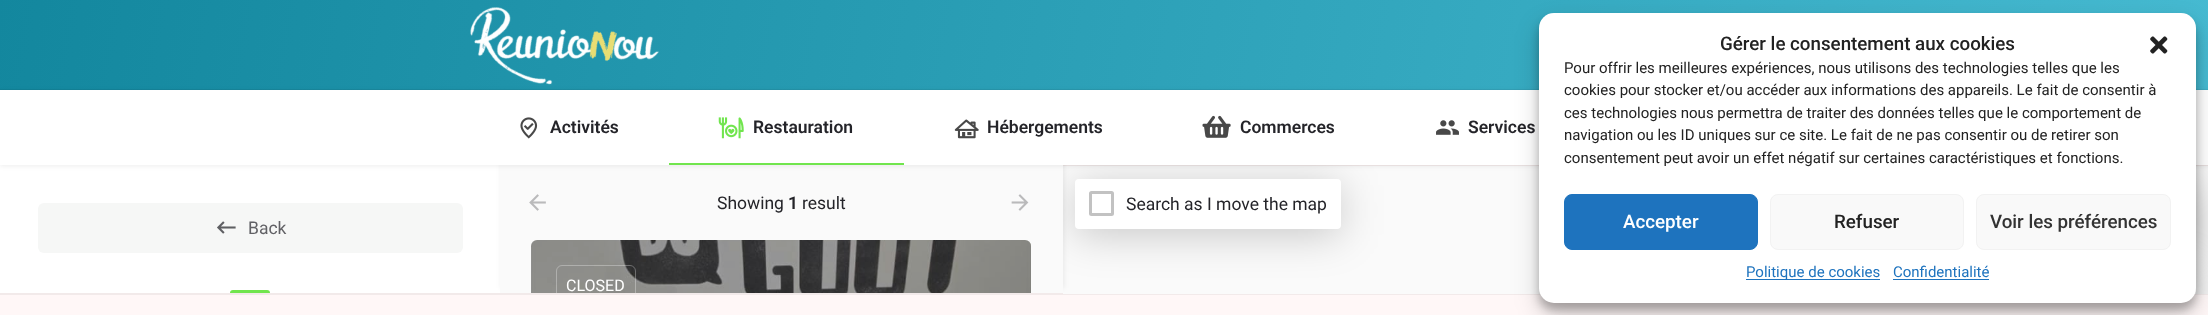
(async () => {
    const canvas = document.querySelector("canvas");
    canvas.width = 2208;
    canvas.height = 315;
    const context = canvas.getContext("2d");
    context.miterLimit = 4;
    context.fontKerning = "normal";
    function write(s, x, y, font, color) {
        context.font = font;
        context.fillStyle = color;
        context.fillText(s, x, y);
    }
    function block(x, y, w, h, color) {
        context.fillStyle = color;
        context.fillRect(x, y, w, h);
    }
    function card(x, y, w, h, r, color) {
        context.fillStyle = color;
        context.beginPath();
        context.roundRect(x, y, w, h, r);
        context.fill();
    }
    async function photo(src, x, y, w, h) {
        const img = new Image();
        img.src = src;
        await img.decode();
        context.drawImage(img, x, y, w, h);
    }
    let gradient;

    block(0, 0, 2208, 315, "rgb(255, 247, 247)");
    gradient = context.createLinearGradient(24, -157, 2185, 224);
    gradient.addColorStop(0, "rgb(19, 135, 158)");
    gradient.addColorStop(1, "rgb(70, 186, 209)");
    context.fillStyle = gradient;
    context.fillRect(0, 0, 2208, 90);
    await photo("media/1.png", 470, 7, 189, 78);
    context.fillStyle = "rgba(0, 0, 0, 0.05)";
    context.filter = "blur(0.5px)";
    context.beginPath();
    context.rect(-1, 89, 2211, 206);
    context.fill();
    context.filter = "none";
    block(0, 165, 500, 128, "rgb(255, 255, 255)");
    block(1063, 166, 1145, 128, "rgb(250, 250, 250)");
    context.fillStyle = "rgba(0, 0, 0, 0.07)";
    context.filter = "blur(2.5px)";
    context.beginPath();
    context.rect(501, 160, 563, 128);
    context.fill();
    context.filter = "none";
    context.fillStyle = "rgba(0, 0, 0, 0.2)";
    context.filter = "blur(20.5px)";
    context.beginPath();
    context.roundRect(1075, 185, 266, 50, 4);
    context.fill();
    context.filter = "none";
    block(500, 165, 563, 128, "rgb(250, 250, 250)");
    context.fillStyle = "rgba(0, 0, 0, 0.07)";
    context.filter = "blur(2.5px)";
    context.beginPath();
    context.rect(0, 91, 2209, 75);
    context.fill();
    context.filter = "none";
    context.fillStyle = "rgba(0, 0, 0, 0.2)";
    context.filter = "blur(20.5px)";
    context.beginPath();
    context.roundRect(2160, 185, 36, 73, 4);
    context.fill();
    context.filter = "none";
    block(0, 90, 2208, 75, "rgb(255, 255, 255)");
    await photo("media/2.png", 520, 117, 18, 22);
    write("Activités", 550, 133, "600 17.5px Roboto", "rgb(36, 36, 41)");
    await photo("media/3.png", 718, 117, 26, 22);
    write("Restauration", 753, 133, "600 17.5px Roboto", "rgb(36, 36, 41)");
    block(669, 163, 235, 2, "rgb(113, 229, 78)");
    await photo("media/4.png", 954, 119, 25, 20);
    write("Hébergements", 987, 133, "600 17.5px Roboto", "rgb(36, 36, 41)");
    await photo("media/5.png", 1202, 115, 29, 23);
    write("Commerces", 1240, 133, "600 17.5px Roboto", "rgb(36, 36, 41)");
    await photo("media/6.png", 1436, 120, 23, 15);
    write("Services", 1468, 133, "600 17.5px Roboto", "rgb(36, 36, 41)");
    card(38, 203, 425, 50, 6, "rgb(246, 247, 246)");
    await photo("media/7.png", 217, 221, 19, 13);
    write("Back", 248, 234, "17.5px Roboto", "rgb(97, 97, 101)");
    context.fillStyle = "rgb(113, 229, 78)";
    context.beginPath();
    context.roundRect(230, 290, 40, 3, [20, 20, 0, 0]);
    context.fill();
    await photo("media/8.png", 529, 194, 17, 17);
    write("Showing", 717, 209, "17.5px Roboto", "rgb(36, 36, 41)");
    write("1", 788, 209, "600 17.5px Roboto", "rgb(36, 36, 41)");
    write("result", 802, 209, "17.5px Roboto", "rgb(36, 36, 41)");
    await photo("media/9.png", 1011, 194, 18, 17);
    await photo("media/10.png", 531, 240, 500, 53);
    context.fillStyle = "rgba(36, 36, 41, 0.4)";
    context.beginPath();
    context.roundRect(531, 240, 500, 53, [6, 6, 0, 0]);
    context.fill();
    context.save();
    context.beginPath();
    context.rect(531, 240, 500, 53);
    context.clip();
    context.beginPath();
    context.roundRect(556.5, 265.5, 79, 39, 5.5);
    context.strokeStyle = "rgba(255, 255, 255, 0.3)";
    context.stroke();
    context.restore();
    write("CLOSED", 566, 291, "16px Roboto", "rgb(255, 255, 255)");
    card(1075, 179, 266, 50, 4, "rgb(255, 255, 255)");
    context.beginPath();
    context.roundRect(1090.5, 192.5, 22, 22, 1);
    context.strokeStyle = "rgb(194, 194, 194)";
    context.lineWidth = 3;
    context.stroke();
    write("Search as I move the map", 1126, 210, "17.5px Roboto", "rgb(36, 36, 41)");
    context.save();
    context.beginPath();
    context.rect(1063, 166, 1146, 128);
    context.clip();
    context.fillStyle = "rgba(0, 0, 0, 0.2)";
    context.filter = "blur(20.5px)";
    context.beginPath();
    context.roundRect(2160, 270, 36, 36, 4);
    context.fill();
    context.filter = "none";
    context.restore();
    block(2194, 288, 2, 6, "rgb(255, 255, 255)");
    context.fillStyle = "rgba(0, 0, 0, 0.23)";
    context.filter = "blur(4px)";
    context.beginPath();
    context.roundRect(1539, 20, 657, 290, 15);
    context.fill();
    context.filter = "none";
    context.fillStyle = "rgba(0, 0, 0, 0.19)";
    context.filter = "blur(12.5px)";
    context.beginPath();
    context.roundRect(1539, 25, 657, 290, 15);
    context.fill();
    context.filter = "none";
    card(1539, 13, 657, 290, 15, "rgb(255, 255, 255)");
    write("Gérer le consentement aux cookies", 1720, 50, "500 18.75px Roboto", "rgb(34, 34, 34)");
    await photo("media/11.png", 2150, 36, 18, 18);
    write("Pour offrir les meilleures expériences, nous utilisons des technologies telles que les", 1564, 73, "15px Roboto", "rgb(34, 34, 34)");
    write("cookies pour stocker et/ou accéder aux informations des appareils. Le fait de consentir à", 1564, 95, "15px Roboto", "rgb(34, 34, 34)");
    write("ces technologies nous permettra de traiter des données telles que le comportement de", 1564, 118, "15px Roboto", "rgb(34, 34, 34)");
    write("navigation ou les ID uniques sur ce site. Le fait de ne pas consentir ou de retirer son", 1564, 140, "15px Roboto", "rgb(34, 34, 34)");
    write("consentement peut avoir un effet négatif sur certaines caractéristiques et fonctions.", 1564, 163, "15px Roboto", "rgb(34, 34, 34)");
    context.fillStyle = "rgb(30, 115, 190)";
    context.beginPath();
    context.roundRect(1564.5, 194.5, 193, 55, 7.5);
    context.fill();
    context.strokeStyle = "rgb(30, 115, 190)";
    context.lineWidth = 1;
    context.stroke();
    write("Accepter", 1623, 228, "500 18.75px Roboto", "rgb(255, 255, 255)");
    context.fillStyle = "rgb(249, 249, 249)";
    context.beginPath();
    context.roundRect(1770.5, 194.5, 193, 55, 7.5);
    context.fill();
    context.strokeStyle = "rgb(242, 242, 242)";
    context.stroke();
    write("Refuser", 1834, 228, "500 18.75px Roboto", "rgb(34, 34, 34)");
    context.fillStyle = "rgb(249, 249, 249)";
    context.beginPath();
    context.roundRect(1976.5, 194.5, 194, 55, 7.5);
    context.fill();
    context.stroke();
    write("Voir les préférences", 1990, 228, "500 18.75px Roboto", "rgb(51, 51, 51)");
    block(1746, 279, 134, 1, "rgb(30, 115, 190)");
    write("Politique de cookies", 1746, 277, "15px Roboto", "rgb(30, 115, 190)");
    write("Confidentialité", 1893, 277, "15px Roboto", "rgb(30, 115, 190)");
    block(1893, 279, 96, 1, "rgb(30, 115, 190)");
})();
